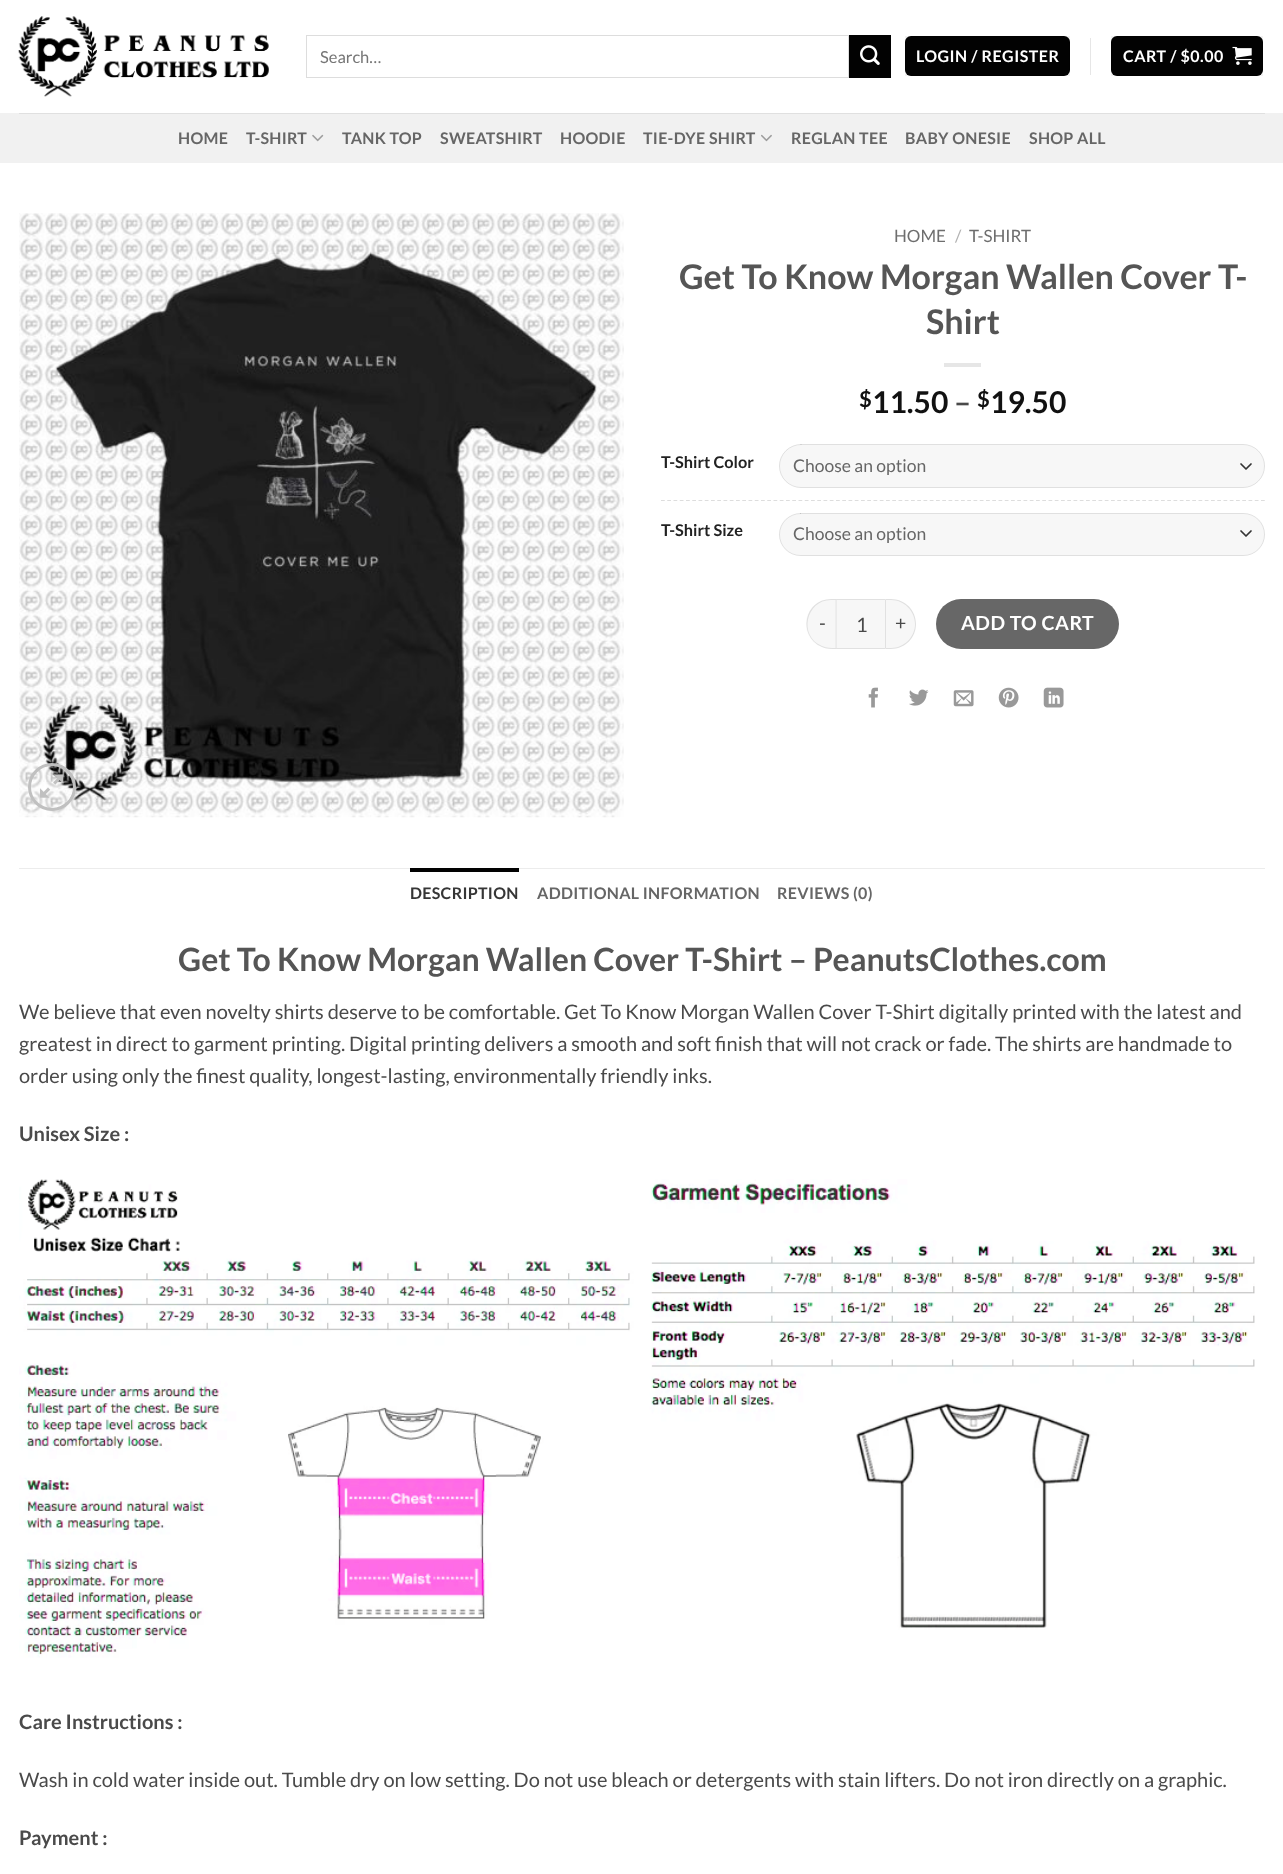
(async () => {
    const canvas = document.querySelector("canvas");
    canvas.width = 1283;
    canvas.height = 1874;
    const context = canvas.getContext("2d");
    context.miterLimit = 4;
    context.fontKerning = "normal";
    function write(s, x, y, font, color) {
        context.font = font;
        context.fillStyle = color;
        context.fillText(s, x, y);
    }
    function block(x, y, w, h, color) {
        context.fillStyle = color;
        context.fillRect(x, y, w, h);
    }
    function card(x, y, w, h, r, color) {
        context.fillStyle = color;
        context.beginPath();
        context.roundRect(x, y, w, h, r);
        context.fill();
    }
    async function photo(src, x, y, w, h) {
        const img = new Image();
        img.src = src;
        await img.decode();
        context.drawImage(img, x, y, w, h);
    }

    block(0, 0, 1283, 1874, "rgb(255, 255, 255)");
    await photo("media/1.png", 18, 16, 251, 81);
    context.strokeStyle = "rgb(221, 221, 221)";
    context.strokeRect(306.5, 35.5, 542, 42);
    write("Search…", 320, 63, "16.5px Lato", "rgb(117, 117, 117)");
    block(849, 35, 42, 43, "rgb(2, 2, 2)");
    await photo("media/2.png", 860, 45, 20, 20);
    card(905, 36, 165, 40, 6, "rgb(2, 2, 2)");
    context.strokeStyle = "rgba(0, 0, 0, 0.05)";
    context.strokeRect(905.5, 36.5, 164, 39);
    context.letterSpacing = "0.5px";
    write("LOGIN / REGISTER", 916, 62, "bold 16px Lato", "rgb(255, 255, 255)");
    block(1090, 38, 1, 37, "rgb(230, 230, 230)");
    card(1111, 36, 152, 40, 6, "rgb(2, 2, 2)");
    context.strokeRect(1111.5, 36.5, 151, 39);
    write("CART / $0.00", 1123, 62, "bold 16px Lato", "rgb(255, 255, 255)");
    await photo("media/3.png", 1232, 46, 20, 19);
    block(0, 113, 1283, 50, "rgb(241, 241, 241)");
    block(19, 113, 1246, 1, "rgb(224, 224, 224)");
    context.letterSpacing = "0.3px";
    write("HOME", 178, 144, "bold 16px Lato", "rgb(102, 102, 102)");
    write("T-SHIRT", 246, 144, "bold 16px Lato", "rgb(102, 102, 102)");
    await photo("media/4.png", 312, 134, 12, 8);
    write("TANK TOP", 342, 144, "bold 16px Lato", "rgb(102, 102, 102)");
    write("SWEATSHIRT", 440, 144, "bold 16px Lato", "rgb(102, 102, 102)");
    write("HOODIE", 560, 144, "bold 16px Lato", "rgb(102, 102, 102)");
    write("TIE-DYE SHIRT", 643, 144, "bold 16px Lato", "rgb(102, 102, 102)");
    await photo("media/5.png", 761, 134, 11, 8);
    write("REGLAN TEE", 791, 144, "bold 16px Lato", "rgb(102, 102, 102)");
    write("BABY ONESIE", 905, 144, "bold 16px Lato", "rgb(102, 102, 102)");
    write("SHOP ALL", 1029, 144, "bold 16px Lato", "rgb(102, 102, 102)");
    await photo("media/6.png", 19, 213, 605, 605);
    context.beginPath();
    context.arc(52, 787, 22.5, 0, Math.PI * 2);
    context.strokeStyle = "rgb(192, 192, 192)";
    context.lineWidth = 3;
    context.stroke();
    await photo("media/7.png", 40, 774, 24, 24);
    context.letterSpacing = "0px";
    write("HOME", 894, 242, "17px Lato", "rgb(110, 110, 110)");
    write("/", 955, 242, "17px Lato", "rgb(178, 178, 178)");
    write("T-SHIRT", 969, 242, "17px Lato", "rgb(110, 110, 110)");
    write("Get To Know Morgan Wallen Cover T-", 679, 289, "bold 34px Lato", "rgb(85, 85, 85)");
    write("Shirt", 926, 334, "bold 34px Lato", "rgb(85, 85, 85)");
    block(944, 363, 37, 4, "rgb(230, 230, 230)");
    write("$", 859, 407, "bold 22px Lato", "rgb(17, 17, 17)");
    write("11.50", 872, 413, "bold 30px Lato", "rgb(17, 17, 17)");
    write("–", 954, 413, "bold 30px Lato", "rgb(74, 74, 74)");
    write("$", 977, 407, "bold 22px Lato", "rgb(17, 17, 17)");
    write("19.50", 990, 413, "bold 30px Lato", "rgb(17, 17, 17)");
    write("T-Shirt Color", 661, 468, "bold 16.25px Lato", "rgb(34, 34, 34)");
    card(779, 444, 486, 44, 22, "rgb(247, 247, 247)");
    context.beginPath();
    context.moveTo(1241, 464);
    context.lineTo(1246, 469);
    context.lineTo(1251, 464);
    context.strokeStyle = "rgb(51, 51, 51)";
    context.lineWidth = 1.7;
    context.lineCap = "round";
    context.lineJoin = "round";
    context.stroke();
    context.beginPath();
    context.roundRect(779.5, 444.5, 485, 43, 21.5);
    context.strokeStyle = "rgba(0, 0, 0, 0.09)";
    context.lineWidth = 1;
    context.lineJoin = "miter";
    context.stroke();
    write("Choose an option", 793, 472, "17.5px Lato", "rgb(102, 102, 102)");
    context.beginPath();
    context.moveTo(661, 500.5);
    context.lineTo(1265, 500.5);
    context.strokeStyle = "rgb(221, 221, 221)";
    context.lineWidth = 1.2;
    context.lineCap = "butt";
    context.setLineDash([3.75, 2.5]);
    context.stroke();
    write("T-Shirt Size", 661, 536, "bold 16.25px Lato", "rgb(34, 34, 34)");
    card(779, 513, 486, 43, 21.5, "rgb(247, 247, 247)");
    context.beginPath();
    context.moveTo(1241, 531);
    context.lineTo(1246, 536);
    context.lineTo(1251, 531);
    context.strokeStyle = "rgb(51, 51, 51)";
    context.lineWidth = 1.7;
    context.lineCap = "round";
    context.lineJoin = "round";
    context.setLineDash([]);
    context.stroke();
    context.beginPath();
    context.roundRect(779.5, 513.5, 485, 42, 21);
    context.strokeStyle = "rgba(0, 0, 0, 0.09)";
    context.lineWidth = 1;
    context.lineJoin = "miter";
    context.stroke();
    write("Choose an option", 793, 540, "17.5px Lato", "rgb(102, 102, 102)");
    context.fillStyle = "rgb(247, 247, 247)";
    context.beginPath();
    context.roundRect(806, 599, 30, 50, [25, 0, 0, 25]);
    context.fill();
    context.fillStyle = "rgba(0, 0, 0, 0.09)";
    context.beginPath();
    context.moveTo(831, 599);
    context.lineTo(836, 599);
    context.lineTo(836, 649);
    context.bezierCurveTo(831, 649, 826, 649, 822, 647);
    context.bezierCurveTo(797, 636, 804, 599, 831, 599);
    context.closePath();
    context.moveTo(831, 600);
    context.lineTo(836, 600);
    context.lineTo(836, 648);
    context.bezierCurveTo(831, 648, 827, 648, 822, 646);
    context.bezierCurveTo(798, 636, 806, 600, 831, 600);
    context.closePath();
    context.fill("evenodd");
    context.letterSpacing = "0.5px";
    write("-", 819, 630, "19.5px Lato", "rgb(74, 74, 74)");
    context.fillStyle = "rgb(247, 247, 247)";
    context.beginPath();
    context.rect(836.5, 599.5, 49, 49);
    context.fill();
    context.strokeStyle = "rgb(225, 225, 225)";
    context.stroke();
    context.letterSpacing = "0px";
    write("1", 856, 632, "20px Lato", "rgb(74, 74, 74)");
    context.fillStyle = "rgb(247, 247, 247)";
    context.beginPath();
    context.roundRect(886, 599, 30, 50, [0, 25, 25, 0]);
    context.fill();
    context.fillStyle = "rgba(0, 0, 0, 0.09)";
    context.beginPath();
    context.moveTo(886, 599);
    context.lineTo(891, 599);
    context.bezierCurveTo(905, 599, 916, 610, 916, 624);
    context.bezierCurveTo(916, 638, 905, 649, 891, 649);
    context.lineTo(886, 649);
    context.closePath();
    context.moveTo(886, 600);
    context.lineTo(891, 600);
    context.bezierCurveTo(904, 600, 915, 611, 915, 624);
    context.bezierCurveTo(915, 637, 904, 648, 891, 648);
    context.lineTo(886, 648);
    context.closePath();
    context.fill("evenodd");
    context.letterSpacing = "0.5px";
    write("+", 895, 630, "19.5px Lato", "rgb(74, 74, 74)");
    card(936, 599, 183, 50, 25, "rgb(103, 103, 103)");
    write("ADD TO CART", 961, 630, "bold 19.5px Lato", "rgb(255, 255, 255)");
    await photo("media/8.png", 868, 687, 10, 21);
    await photo("media/9.png", 909, 689, 20, 17);
    await photo("media/10.png", 953, 690, 21, 17);
    await photo("media/11.png", 998, 687, 21, 21);
    await photo("media/12.png", 1043, 687, 21, 21);
    block(19, 868, 1246, 1, "rgb(236, 236, 236)");
    block(410, 868, 109, 4, "rgb(2, 2, 2)");
    context.letterSpacing = "0.3px";
    write("DESCRIPTION", 410, 899, "bold 16px Lato", "rgb(54, 54, 54)");
    write("ADDITIONAL INFORMATION", 537, 899, "bold 16px Lato", "rgb(102, 102, 102)");
    write("REVIEWS (0)", 777, 899, "bold 16px Lato", "rgb(102, 102, 102)");
    context.letterSpacing = "0px";
    write("Get To Know Morgan Wallen Cover T-Shirt – PeanutsClothes.com", 178, 971, "bold 32px Lato", "rgb(85, 85, 85)");
    write("We believe that even novelty shirts deserve to be comfortable. Get To Know Morgan Wallen Cover T-Shirt digitally printed with the latest and", 19, 1019, "20px Lato", "rgb(74, 74, 74)");
    write("greatest in direct to garment printing. Digital printing delivers a smooth and soft finish that will not crack or fade. The shirts are handmade to", 19, 1051, "20px Lato", "rgb(74, 74, 74)");
    write("order using only the finest quality, longest-lasting, environmentally friendly inks.", 19, 1083, "20px Lato", "rgb(74, 74, 74)");
    write("Unisex Size :", 19, 1141, "bold 20px Lato", "rgb(74, 74, 74)");
    await photo("media/13.png", 19, 1179, 1236, 479);
    write("Care Instructions :", 19, 1729, "bold 20px Lato", "rgb(74, 74, 74)");
    write("Wash in cold water inside out. Tumble dry on low setting. Do not use bleach or detergents with stain lifters. Do not iron directly on a graphic.", 19, 1787, "20px Lato", "rgb(74, 74, 74)");
    write("Payment :", 19, 1845, "bold 20px Lato", "rgb(74, 74, 74)");
})();
